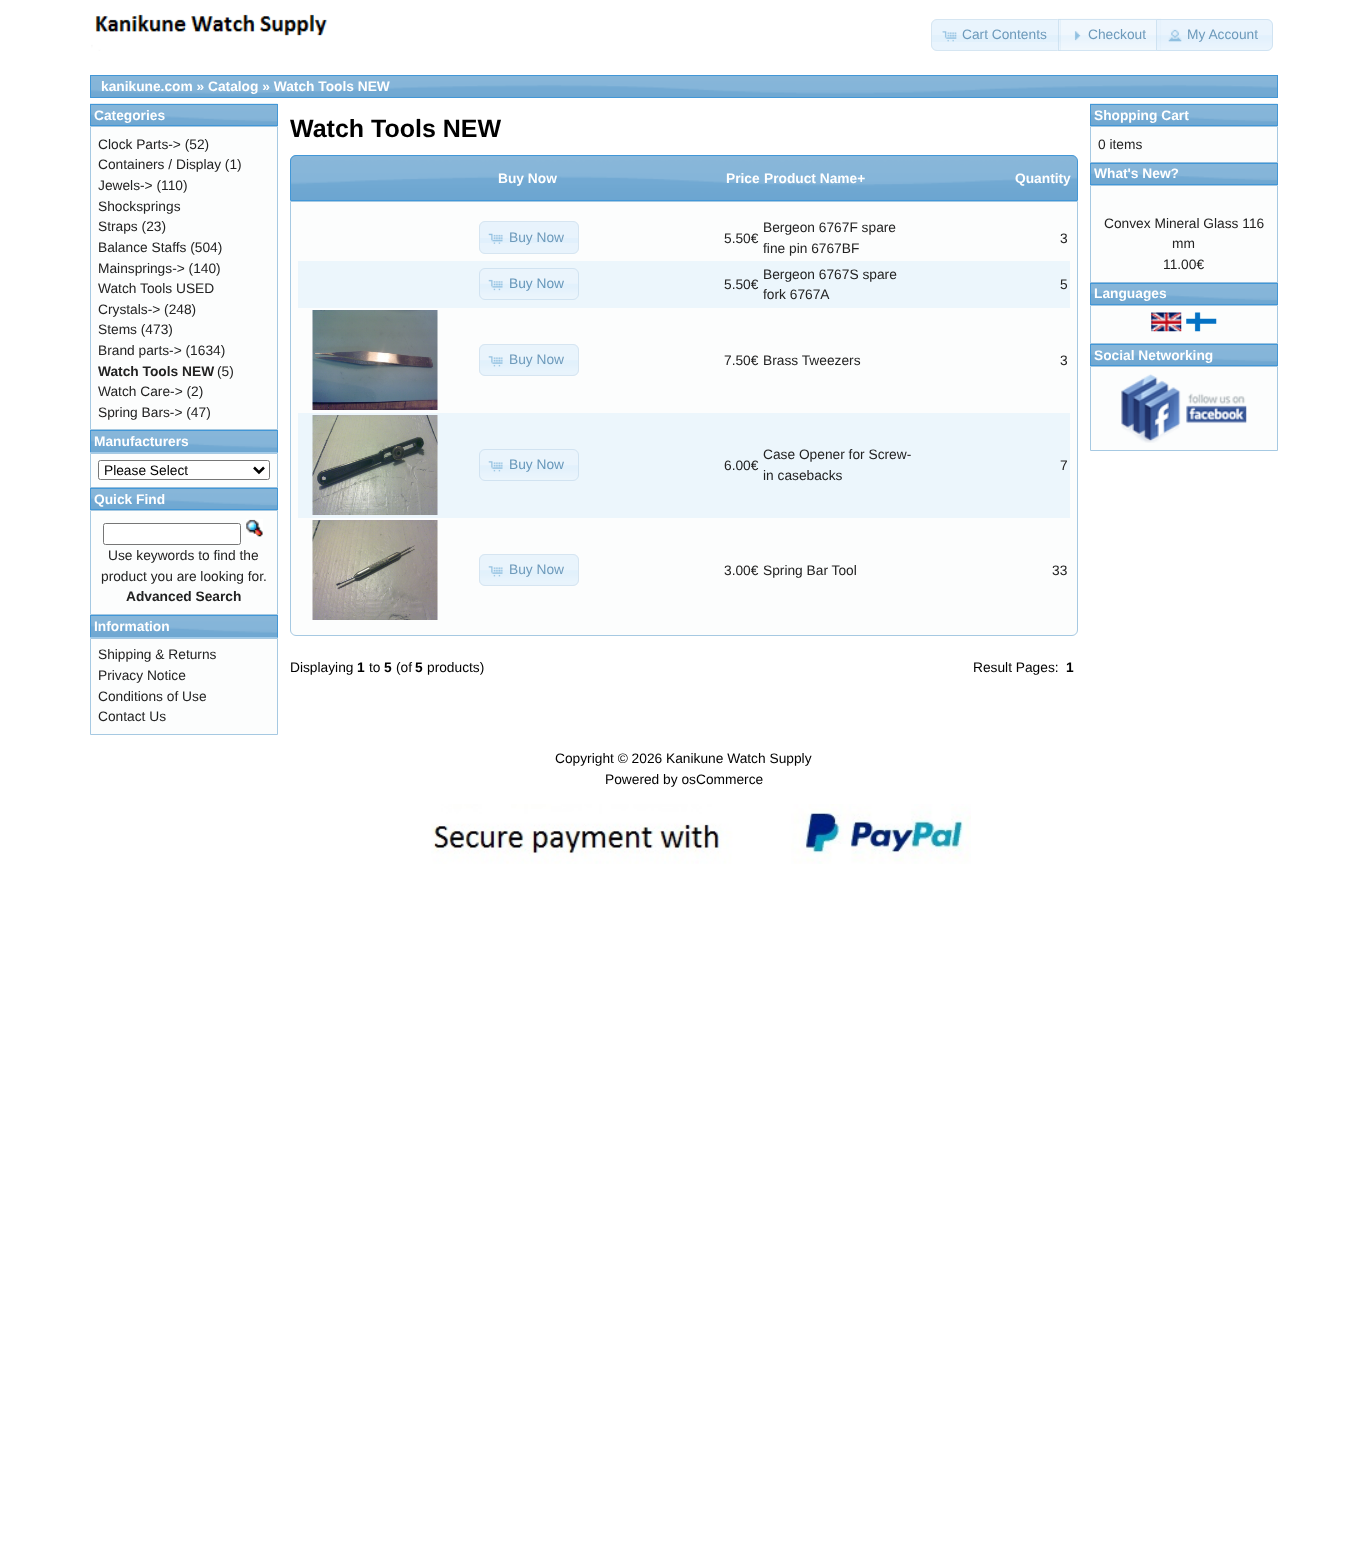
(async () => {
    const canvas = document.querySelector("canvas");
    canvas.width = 1367;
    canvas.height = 1563;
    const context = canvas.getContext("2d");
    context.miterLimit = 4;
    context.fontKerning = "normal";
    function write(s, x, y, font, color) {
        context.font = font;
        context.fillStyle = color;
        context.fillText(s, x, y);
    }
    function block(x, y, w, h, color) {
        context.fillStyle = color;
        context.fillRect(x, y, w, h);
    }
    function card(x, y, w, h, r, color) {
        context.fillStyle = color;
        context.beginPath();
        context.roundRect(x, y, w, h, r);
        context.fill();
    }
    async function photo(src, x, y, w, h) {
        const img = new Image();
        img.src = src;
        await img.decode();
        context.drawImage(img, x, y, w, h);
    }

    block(0, 0, 1367, 1563, "rgb(255, 255, 255)");
    await photo("media/1.png", 91, 14, 237, 37);
    context.fillStyle = "rgb(233, 244, 253)";
    context.beginPath();
    context.roundRect(931, 19, 130, 32, [6, 0, 0, 6]);
    context.fill();
    block(931, 35, 130, 7, "rgb(226, 241, 252)");
    context.beginPath();
    context.roundRect(931.5, 19.5, 129, 31, [5.5, 0, 0, 5.5]);
    context.strokeStyle = "rgb(214, 230, 242)";
    context.stroke();
    await photo("media/2.png", 942, 31, 15, 11);
    write("Cart Contents", 962, 39, "13.75px Liberation Sans", "rgb(109, 154, 187)");
    await photo("media/3.png", 1057, 18, 105, 33);
    context.strokeStyle = "rgba(197, 219, 236, 0.7)";
    context.strokeRect(1058.5, 19.5, 102, 31);
    await photo("media/4.png", 1074, 31, 7, 10);
    write("Checkout", 1088, 39, "13.75px Liberation Sans", "rgb(109, 154, 187)");
    context.fillStyle = "rgba(223, 239, 252, 0.7)";
    context.beginPath();
    context.roundRect(1156, 19, 117, 32, [0, 6, 6, 0]);
    context.fill();
    await photo("media/5.png", 1156, 19, 116, 32);
    context.beginPath();
    context.roundRect(1156.5, 19.5, 116, 31, [0, 5.5, 5.5, 0]);
    context.stroke();
    await photo("media/6.png", 1168, 29, 14, 13);
    write("My Account", 1187, 39, "13.75px Liberation Sans", "rgb(109, 154, 187)");
    await photo("media/7.png", 91, 76, 1186, 21);
    context.strokeStyle = "rgb(66, 151, 215)";
    context.strokeRect(90.5, 75.5, 1187, 22);
    write("kanikune.com » Catalog » Watch Tools NEW", 101, 91, "bold 13.75px Liberation Sans", "rgb(255, 255, 255)");
    await photo("media/8.png", 90, 103, 188, 22);
    context.strokeRect(90.5, 104.5, 187, 21);
    write("Categories", 94, 120, "bold 13.75px Liberation Sans", "rgb(255, 255, 255)");
    context.fillStyle = "rgb(252, 253, 253)";
    context.beginPath();
    context.rect(90.5, 126.5, 187, 303);
    context.fill();
    context.strokeStyle = "rgb(166, 201, 226)";
    context.stroke();
    write("Clock Parts-> (52)", 98, 149, "13.75px Liberation Sans", "rgb(34, 34, 34)");
    write("Containers / Display (1)", 98, 169, "13.75px Liberation Sans", "rgb(34, 34, 34)");
    write("Jewels-> (110)", 98, 190, "13.75px Liberation Sans", "rgb(34, 34, 34)");
    write("Shocksprings", 98, 211, "13.75px Liberation Sans", "rgb(34, 34, 34)");
    write("Straps (23)", 98, 231, "13.75px Liberation Sans", "rgb(34, 34, 34)");
    write("Balance Staffs (504)", 98, 252, "13.75px Liberation Sans", "rgb(34, 34, 34)");
    write("Mainsprings-> (140)", 98, 273, "13.75px Liberation Sans", "rgb(34, 34, 34)");
    write("Watch Tools USED", 98, 293, "13.75px Liberation Sans", "rgb(34, 34, 34)");
    write("Crystals-> (248)", 98, 314, "13.75px Liberation Sans", "rgb(34, 34, 34)");
    write("Stems (473)", 98, 334, "13.75px Liberation Sans", "rgb(34, 34, 34)");
    write("Brand parts-> (1634)", 98, 355, "13.75px Liberation Sans", "rgb(34, 34, 34)");
    write("Watch Tools NEW", 98, 376, "bold 13.75px Liberation Sans", "rgb(34, 34, 34)");
    write("(5)", 217, 376, "13.75px Liberation Sans", "rgb(34, 34, 34)");
    write("Watch Care-> (2)", 98, 396, "13.75px Liberation Sans", "rgb(34, 34, 34)");
    write("Spring Bars-> (47)", 98, 417, "13.75px Liberation Sans", "rgb(34, 34, 34)");
    await photo("media/9.png", 91, 431, 186, 21);
    context.strokeStyle = "rgb(66, 151, 215)";
    context.strokeRect(90.5, 430.5, 187, 22);
    write("Manufacturers", 94, 446, "bold 13.75px Liberation Sans", "rgb(255, 255, 255)");
    context.fillStyle = "rgb(252, 253, 253)";
    context.beginPath();
    context.rect(90.5, 453.5, 187, 34);
    context.fill();
    context.strokeStyle = "rgb(166, 201, 226)";
    context.stroke();
    await photo("media/10.png", 90, 452, 188, 1);
    context.fillStyle = "rgb(255, 255, 255)";
    context.beginPath();
    context.roundRect(98.5, 460.5, 171, 19, 2);
    context.fill();
    context.strokeStyle = "rgb(118, 118, 118)";
    context.stroke();
    context.beginPath();
    context.moveTo(254, 467.5);
    context.lineTo(259, 472.5);
    context.lineTo(264, 467.5);
    context.strokeStyle = "rgb(0, 0, 0)";
    context.lineWidth = 2.5;
    context.stroke();
    write("Please Select", 104, 475, "13.75px Liberation Sans", "rgb(0, 0, 0)");
    await photo("media/11.png", 90, 487, 188, 22);
    context.strokeStyle = "rgb(66, 151, 215)";
    context.lineWidth = 1;
    context.strokeRect(90.5, 488.5, 187, 21);
    write("Quick Find", 94, 504, "bold 13.75px Liberation Sans", "rgb(255, 255, 255)");
    context.fillStyle = "rgb(252, 253, 253)";
    context.beginPath();
    context.rect(90.5, 510.5, 187, 104);
    context.fill();
    context.strokeStyle = "rgb(166, 201, 226)";
    context.stroke();
    context.fillStyle = "rgb(255, 255, 255)";
    context.beginPath();
    context.roundRect(103.5, 523.5, 137, 21, 2);
    context.fill();
    context.strokeStyle = "rgb(118, 118, 118)";
    context.stroke();
    await photo("media/12.png", 246, 519, 17, 18);
    write("Use keywords to find the", 108, 560, "13.75px Liberation Sans", "rgb(34, 34, 34)");
    write("product you are looking for.", 101, 581, "13.75px Liberation Sans", "rgb(34, 34, 34)");
    write("Advanced Search", 126, 601, "bold 13.75px Liberation Sans", "rgb(34, 34, 34)");
    await photo("media/9.png", 91, 616, 186, 21);
    context.strokeStyle = "rgb(66, 151, 215)";
    context.strokeRect(90.5, 615.5, 187, 22);
    write("Information", 94, 631, "bold 13.75px Liberation Sans", "rgb(255, 255, 255)");
    context.fillStyle = "rgb(252, 253, 253)";
    context.beginPath();
    context.rect(90.5, 638.5, 187, 96);
    context.fill();
    context.strokeStyle = "rgb(166, 201, 226)";
    context.stroke();
    await photo("media/13.png", 90, 637, 188, 1);
    write("Shipping & Returns", 98, 659, "13.75px Liberation Sans", "rgb(34, 34, 34)");
    write("Privacy Notice", 98, 680, "13.75px Liberation Sans", "rgb(34, 34, 34)");
    write("Conditions of Use", 98, 701, "13.75px Liberation Sans", "rgb(34, 34, 34)");
    write("Contact Us", 98, 721, "13.75px Liberation Sans", "rgb(34, 34, 34)");
    write("Watch Tools NEW", 290, 137, "bold 25px Liberation Sans", "rgb(0, 0, 0)");
    await photo("media/14.png", 290, 155, 788, 45);
    context.beginPath();
    context.roundRect(290.5, 155.5, 787, 45, [5.5, 5.5, 0, 0]);
    context.strokeStyle = "rgb(66, 151, 215)";
    context.stroke();
    write("Buy Now", 498, 183, "bold 13.75px Liberation Sans", "rgb(255, 255, 255)");
    write("Price", 726, 183, "bold 13.75px Liberation Sans", "rgb(255, 255, 255)");
    write("Product Name+", 764, 183, "bold 13.75px Liberation Sans", "rgb(255, 255, 255)");
    write("Quantity", 1015, 183, "bold 13.75px Liberation Sans", "rgb(255, 255, 255)");
    context.fillStyle = "rgb(252, 253, 253)";
    context.beginPath();
    context.roundRect(290.5, 201.5, 787, 434, [0, 0, 5.5, 5.5]);
    context.fill();
    context.strokeStyle = "rgb(166, 201, 226)";
    context.stroke();
    card(479, 221, 100, 33, 6, "rgb(232, 243, 252)");
    block(479, 238, 99, 5, "rgb(225, 240, 252)");
    context.beginPath();
    context.roundRect(479.5, 221.5, 99, 32, 5.5);
    context.strokeStyle = "rgb(214, 229, 241)";
    context.stroke();
    await photo("media/15.png", 488, 233, 15, 11);
    write("Buy Now", 509, 242, "13.75px Liberation Sans", "rgb(109, 154, 187)");
    write("5.50€", 724, 243, "13.75px Liberation Sans", "rgb(34, 34, 34)");
    write("Bergeon 6767F spare", 763, 232, "13.75px Liberation Sans", "rgb(34, 34, 34)");
    write("fine pin 6767BF", 763, 253, "13.75px Liberation Sans", "rgb(34, 34, 34)");
    write("3", 1060, 243, "13.75px Liberation Sans", "rgb(34, 34, 34)");
    block(298, 261, 772, 47, "rgb(236, 246, 252)");
    await photo("media/16.png", 479, 268, 99, 32);
    context.beginPath();
    context.roundRect(479.5, 268.5, 99, 31, 5.5);
    context.strokeStyle = "rgb(209, 227, 241)";
    context.stroke();
    await photo("media/17.png", 488, 279, 15, 12);
    write("Buy Now", 509, 288, "13.75px Liberation Sans", "rgb(103, 151, 186)");
    write("5.50€", 724, 289, "13.75px Liberation Sans", "rgb(34, 34, 34)");
    write("Bergeon 6767S spare", 763, 279, "13.75px Liberation Sans", "rgb(34, 34, 34)");
    write("fork 6767A", 763, 299, "13.75px Liberation Sans", "rgb(34, 34, 34)");
    write("5", 1060, 289, "13.75px Liberation Sans", "rgb(34, 34, 34)");
    await photo("media/18.png", 312, 310, 126, 100);
    card(479, 344, 100, 32, 6, "rgb(232, 243, 252)");
    await photo("media/19.png", 479, 344, 99, 29);
    context.beginPath();
    context.roundRect(479.5, 344.5, 99, 31, 5.5);
    context.strokeStyle = "rgb(214, 229, 241)";
    context.stroke();
    await photo("media/20.png", 488, 356, 15, 11);
    write("Buy Now", 509, 364, "13.75px Liberation Sans", "rgb(109, 154, 187)");
    write("7.50€", 724, 365, "13.75px Liberation Sans", "rgb(34, 34, 34)");
    write("Brass Tweezers", 763, 365, "13.75px Liberation Sans", "rgb(34, 34, 34)");
    write("3", 1060, 365, "13.75px Liberation Sans", "rgb(34, 34, 34)");
    block(298, 413, 772, 105, "rgb(236, 246, 252)");
    await photo("media/21.png", 312, 415, 126, 100);
    await photo("media/22.png", 479, 449, 99, 32);
    context.beginPath();
    context.roundRect(479.5, 449.5, 99, 31, 5.5);
    context.strokeStyle = "rgb(209, 227, 241)";
    context.stroke();
    await photo("media/23.png", 488, 461, 15, 11);
    write("Buy Now", 509, 469, "13.75px Liberation Sans", "rgb(103, 151, 186)");
    write("6.00€", 724, 470, "13.75px Liberation Sans", "rgb(34, 34, 34)");
    write("Case Opener for Screw-", 763, 459, "13.75px Liberation Sans", "rgb(34, 34, 34)");
    write("in casebacks", 763, 480, "13.75px Liberation Sans", "rgb(34, 34, 34)");
    write("7", 1060, 470, "13.75px Liberation Sans", "rgb(34, 34, 34)");
    await photo("media/24.png", 312, 520, 126, 100);
    card(479, 554, 100, 32, 6, "rgb(232, 243, 252)");
    await photo("media/19.png", 479, 554, 99, 29);
    context.beginPath();
    context.roundRect(479.5, 554.5, 99, 31, 5.5);
    context.strokeStyle = "rgb(214, 229, 241)";
    context.stroke();
    await photo("media/20.png", 488, 566, 15, 11);
    write("Buy Now", 509, 574, "13.75px Liberation Sans", "rgb(109, 154, 187)");
    write("3.00€", 724, 575, "13.75px Liberation Sans", "rgb(34, 34, 34)");
    write("Spring Bar Tool", 763, 575, "13.75px Liberation Sans", "rgb(34, 34, 34)");
    write("33", 1052, 575, "13.75px Liberation Sans", "rgb(34, 34, 34)");
    write("Displaying", 290, 672, "13.75px Liberation Sans", "rgb(0, 0, 0)");
    write("1", 357, 672, "bold 13.75px Liberation Sans", "rgb(0, 0, 0)");
    write("to", 369, 672, "13.75px Liberation Sans", "rgb(0, 0, 0)");
    write("5", 384, 672, "bold 13.75px Liberation Sans", "rgb(0, 0, 0)");
    write("(of", 396, 672, "13.75px Liberation Sans", "rgb(0, 0, 0)");
    write("5", 415, 672, "bold 13.75px Liberation Sans", "rgb(0, 0, 0)");
    write("products)", 427, 672, "13.75px Liberation Sans", "rgb(0, 0, 0)");
    write("Result Pages:", 973, 672, "13.75px Liberation Sans", "rgb(0, 0, 0)");
    write("1", 1066, 672, "bold 13.75px Liberation Sans", "rgb(0, 0, 0)");
    await photo("media/8.png", 1090, 103, 188, 22);
    context.strokeStyle = "rgb(66, 151, 215)";
    context.strokeRect(1090.5, 104.5, 187, 21);
    write("Shopping Cart", 1094, 120, "bold 13.75px Liberation Sans", "rgb(255, 255, 255)");
    context.fillStyle = "rgb(252, 253, 253)";
    context.beginPath();
    context.rect(1090.5, 126.5, 187, 36);
    context.fill();
    context.strokeStyle = "rgb(166, 201, 226)";
    context.stroke();
    write("0 items", 1098, 149, "13.75px Liberation Sans", "rgb(34, 34, 34)");
    await photo("media/11.png", 1090, 162, 188, 22);
    context.strokeStyle = "rgb(66, 151, 215)";
    context.strokeRect(1090.5, 163.5, 187, 21);
    write("What's New?", 1094, 178, "bold 13.75px Liberation Sans", "rgb(255, 255, 255)");
    context.fillStyle = "rgb(252, 253, 253)";
    context.beginPath();
    context.rect(1090.5, 185.5, 187, 97);
    context.fill();
    context.strokeStyle = "rgb(166, 201, 226)";
    context.stroke();
    write("Convex Mineral Glass 116", 1104, 228, "13.75px Liberation Sans", "rgb(34, 34, 34)");
    write("mm", 1172, 248, "13.75px Liberation Sans", "rgb(34, 34, 34)");
    write("11.00€", 1163, 269, "13.75px Liberation Sans", "rgb(34, 34, 34)");
    await photo("media/25.png", 1090, 282, 188, 22);
    context.strokeStyle = "rgb(66, 151, 215)";
    context.strokeRect(1090.5, 283.5, 187, 21);
    write("Languages", 1094, 298, "bold 13.75px Liberation Sans", "rgb(255, 255, 255)");
    context.fillStyle = "rgb(252, 253, 253)";
    context.beginPath();
    context.rect(1090.5, 305.5, 187, 38);
    context.fill();
    context.strokeStyle = "rgb(166, 201, 226)";
    context.stroke();
    await photo("media/26.png", 1151, 312, 31, 20);
    await photo("media/27.png", 1186, 312, 31, 20);
    await photo("media/28.png", 1090, 343, 188, 22);
    context.strokeStyle = "rgb(66, 151, 215)";
    context.strokeRect(1090.5, 344.5, 187, 21);
    write("Social Networking", 1094, 360, "bold 13.75px Liberation Sans", "rgb(255, 255, 255)");
    context.fillStyle = "rgb(252, 253, 253)";
    context.beginPath();
    context.rect(1090.5, 366.5, 187, 84);
    context.fill();
    context.strokeStyle = "rgb(166, 201, 226)";
    context.stroke();
    await photo("media/29.png", 1121, 374, 126, 69);
    write("Copyright © 2026 Kanikune Watch Supply", 555, 763, "13.75px Liberation Sans", "rgb(0, 0, 0)");
    write("Powered by osCommerce", 605, 784, "13.75px Liberation Sans", "rgb(0, 0, 0)");
    await photo("media/30.png", 431, 804, 540, 60);
})();
